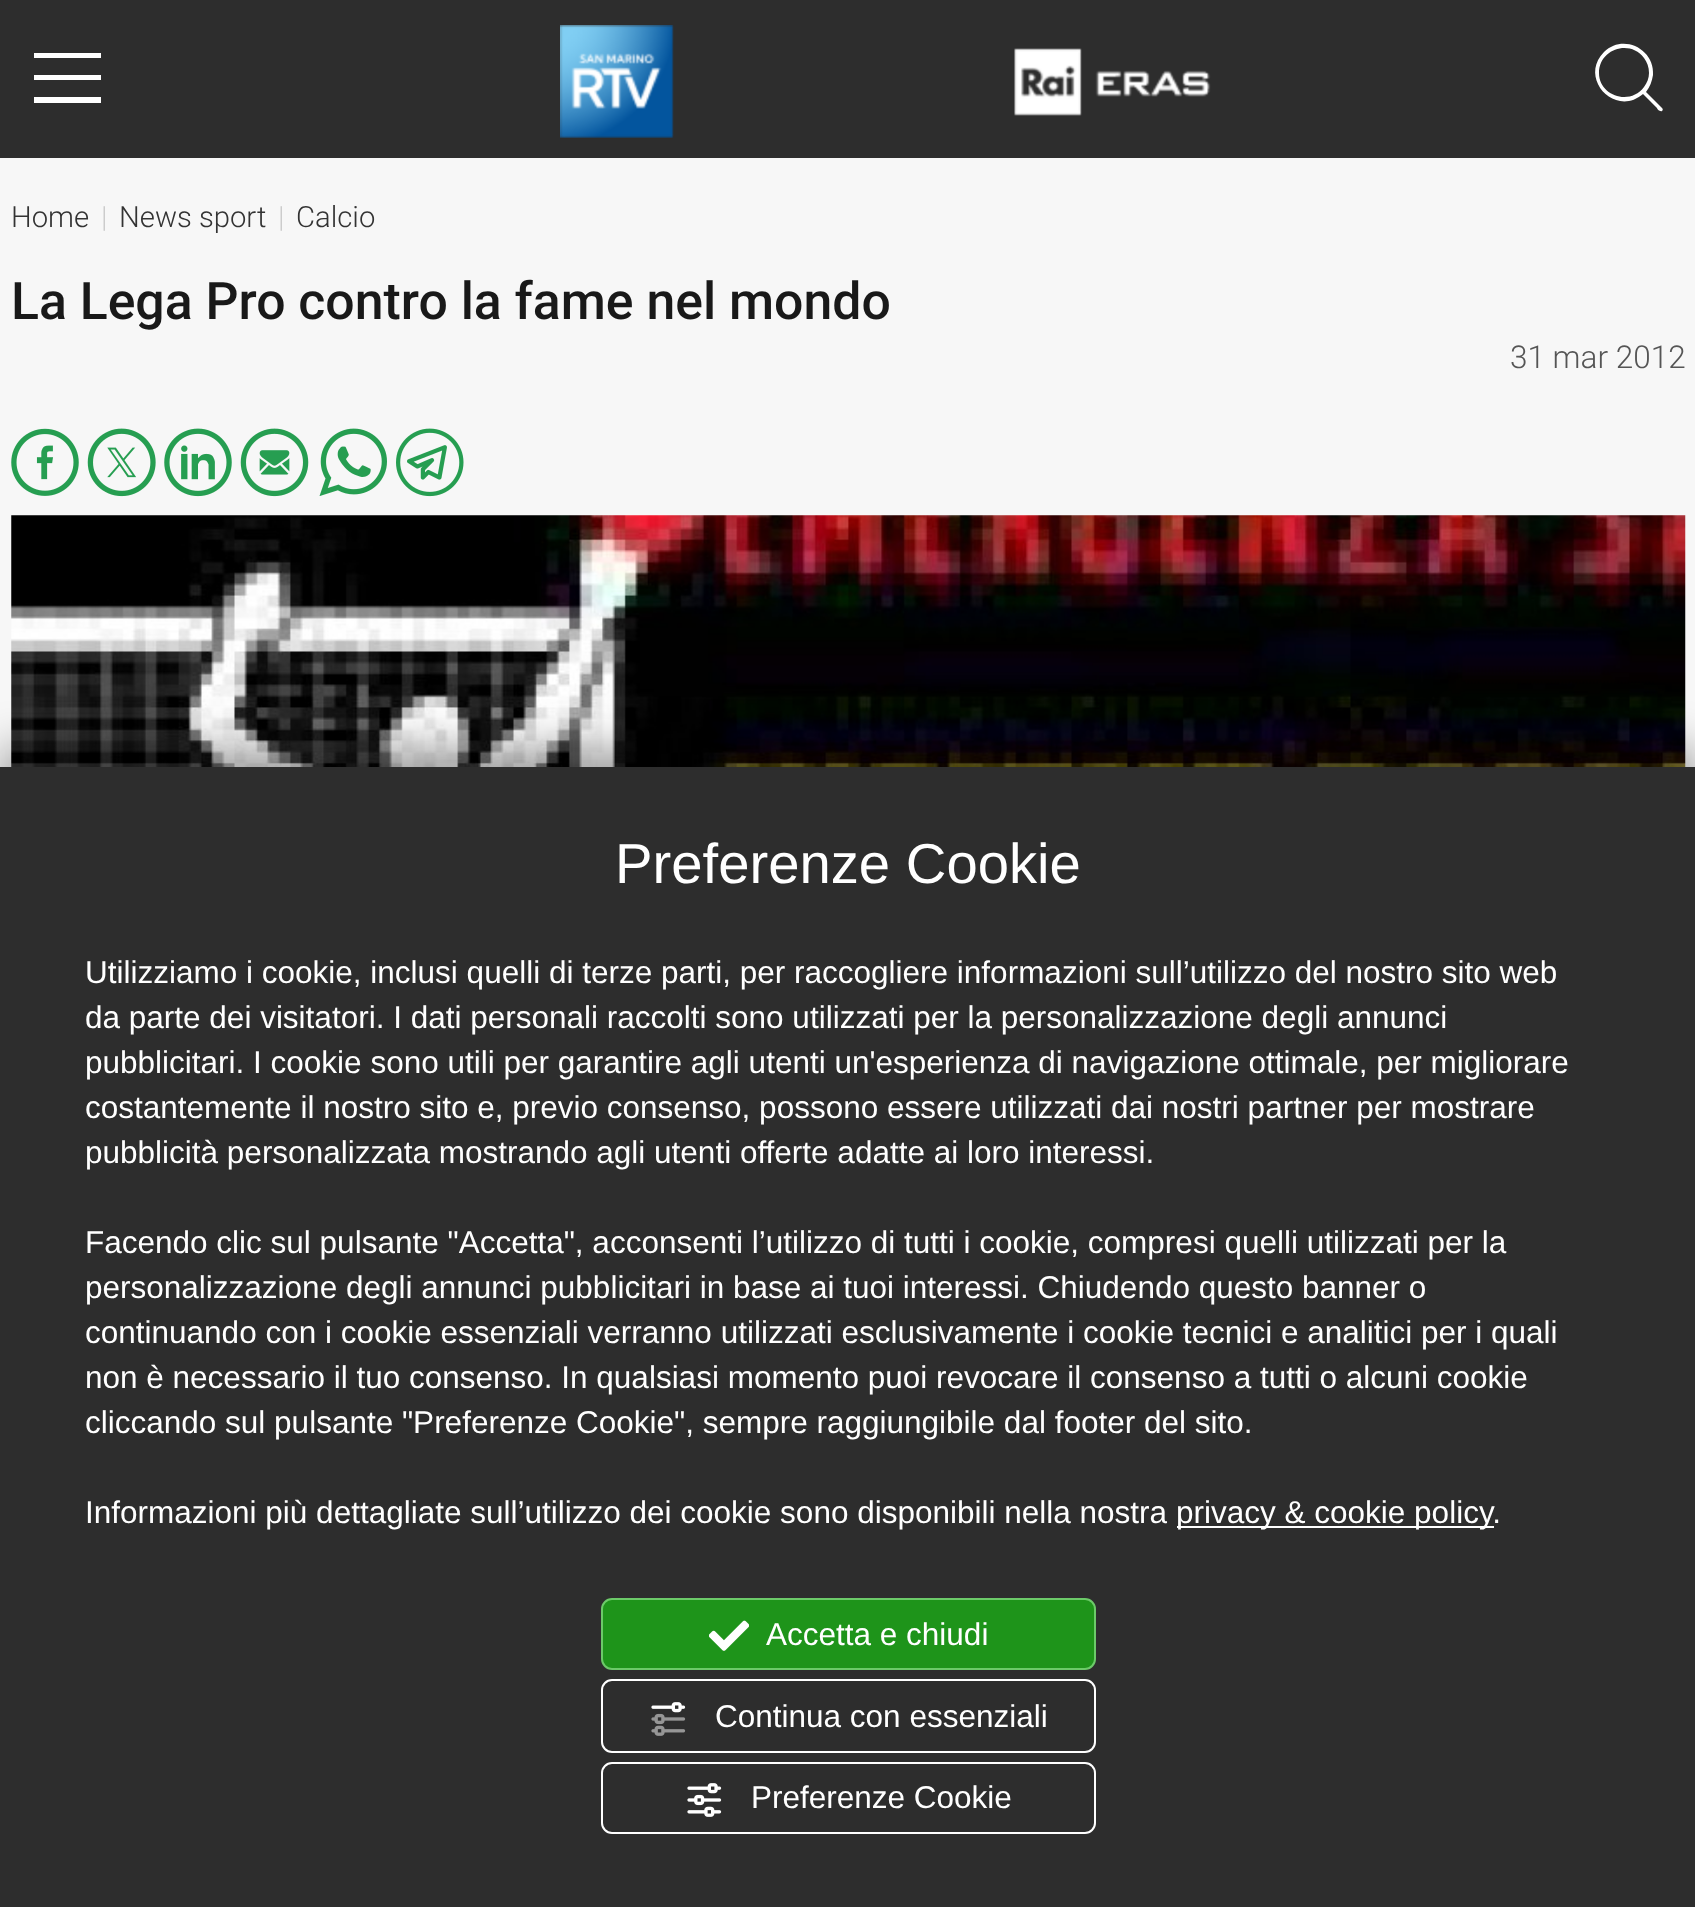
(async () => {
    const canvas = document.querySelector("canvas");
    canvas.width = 1695;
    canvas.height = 1907;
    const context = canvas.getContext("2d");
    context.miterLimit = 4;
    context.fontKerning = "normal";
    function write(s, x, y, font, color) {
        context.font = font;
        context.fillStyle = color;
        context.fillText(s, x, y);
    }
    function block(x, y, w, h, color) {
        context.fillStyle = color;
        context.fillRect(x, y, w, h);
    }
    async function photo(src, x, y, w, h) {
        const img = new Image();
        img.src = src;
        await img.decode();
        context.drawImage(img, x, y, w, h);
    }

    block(0, 0, 1695, 1907, "rgb(247, 247, 247)");
    block(0, 0, 1695, 158, "rgb(45, 45, 45)");
    context.fillStyle = "rgb(255, 255, 255)";
    context.beginPath();
    context.moveTo(34, 53);
    context.lineTo(101, 53);
    context.lineTo(101, 58);
    context.lineTo(34, 58);
    context.closePath();
    context.moveTo(34, 75);
    context.lineTo(101, 75);
    context.lineTo(101, 80);
    context.lineTo(34, 80);
    context.closePath();
    context.moveTo(34, 97);
    context.lineTo(101, 97);
    context.lineTo(101, 103);
    context.lineTo(34, 103);
    context.closePath();
    context.fill();
    await photo("media/1.png", 560, 25, 114, 113);
    await photo("media/2.png", 1014, 48, 197, 68);
    context.beginPath();
    context.moveTo(1662, 108);
    context.lineTo(1646, 92);
    context.bezierCurveTo(1650, 87, 1652, 81, 1653, 75);
    context.bezierCurveTo(1655, 49, 1623, 33, 1604, 52);
    context.bezierCurveTo(1578, 78, 1615, 118, 1643, 94);
    context.lineTo(1657, 108);
    context.bezierCurveTo(1657, 109, 1660, 112, 1662, 111);
    context.bezierCurveTo(1663, 110, 1663, 109, 1662, 108);
    context.closePath();
    context.moveTo(1599, 73);
    context.bezierCurveTo(1599, 49, 1630, 39, 1644, 58);
    context.bezierCurveTo(1647, 62, 1649, 67, 1649, 73);
    context.bezierCurveTo(1649, 78, 1647, 83, 1644, 87);
    context.bezierCurveTo(1630, 106, 1599, 96, 1599, 73);
    context.closePath();
    context.fill();
    write("Home", 11, 227, "300 29.25px Roboto", "rgb(51, 51, 51)");
    write("|", 101, 227, "300 29.25px Roboto", "rgb(204, 204, 204)");
    write("News sport", 119, 227, "300 29.25px Roboto", "rgb(51, 51, 51)");
    write("|", 278, 227, "300 29.25px Roboto", "rgb(204, 204, 204)");
    write("Calcio", 296, 227, "300 29.25px Roboto", "rgb(51, 51, 51)");
    write("La Lega Pro contro la fame nel mondo", 11, 319, "500 51.75px Roboto", "rgb(25, 25, 25)");
    write("31 mar 2012", 1510, 368, "300 31.5px Roboto", "rgb(85, 85, 85)");
    await photo("media/3.png", 11, 428, 68, 68);
    await photo("media/4.png", 87, 428, 69, 69);
    await photo("media/5.png", 164, 428, 68, 69);
    await photo("media/6.png", 240, 428, 69, 69);
    await photo("media/7.png", 319, 428, 68, 68);
    await photo("media/8.png", 396, 428, 68, 69);
    await photo("media/9.png", 11, 515, 1675, 252);
    context.fillStyle = "rgba(0, 0, 0, 0.38)";
    context.filter = "blur(22.5px)";
    context.beginPath();
    context.rect(0, 749, 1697, 1141);
    context.fill();
    context.filter = "none";
    block(0, 767, 1695, 1140, "rgb(45, 45, 45)");
    write("Preferenze Cookie", 615, 883, "56.25px Liberation Sans", "rgb(255, 255, 255)");
    write("Utilizziamo i cookie, inclusi quelli di terze parti, per raccogliere informazioni sull’utilizzo del nostro sito web", 85, 983, "31.5px Liberation Sans", "rgb(255, 255, 255)");
    write("da parte dei visitatori. I dati personali raccolti sono utilizzati per la personalizzazione degli annunci", 85, 1028, "31.5px Liberation Sans", "rgb(255, 255, 255)");
    write("pubblicitari. I cookie sono utili per garantire agli utenti un'esperienza di navigazione ottimale, per migliorare", 85, 1073, "31.5px Liberation Sans", "rgb(255, 255, 255)");
    write("costantemente il nostro sito e, previo consenso, possono essere utilizzati dai nostri partner per mostrare", 85, 1118, "31.5px Liberation Sans", "rgb(255, 255, 255)");
    write("pubblicità personalizzata mostrando agli utenti offerte adatte ai loro interessi.", 85, 1163, "31.5px Liberation Sans", "rgb(255, 255, 255)");
    write("Facendo clic sul pulsante \"Accetta\", acconsenti l’utilizzo di tutti i cookie, compresi quelli utilizzati per la", 85, 1253, "31.5px Liberation Sans", "rgb(255, 255, 255)");
    write("personalizzazione degli annunci pubblicitari in base ai tuoi interessi. Chiudendo questo banner o", 85, 1298, "31.5px Liberation Sans", "rgb(255, 255, 255)");
    write("continuando con i cookie essenziali verranno utilizzati esclusivamente i cookie tecnici e analitici per i quali", 85, 1343, "31.5px Liberation Sans", "rgb(255, 255, 255)");
    write("non è necessario il tuo consenso. In qualsiasi momento puoi revocare il consenso a tutti o alcuni cookie", 85, 1388, "31.5px Liberation Sans", "rgb(255, 255, 255)");
    write("cliccando sul pulsante \"Preferenze Cookie\", sempre raggiungibile dal footer del sito.", 85, 1433, "31.5px Liberation Sans", "rgb(255, 255, 255)");
    write("Informazioni più dettagliate sull’utilizzo dei cookie sono disponibili nella nostra", 85, 1523, "31.5px Liberation Sans", "rgb(255, 255, 255)");
    block(1177, 1526, 317, 2, "rgb(255, 255, 255)");
    write("privacy & cookie policy.", 1176, 1523, "31.5px Liberation Sans", "rgb(255, 255, 255)");
    context.fillStyle = "rgb(30, 148, 26)";
    context.beginPath();
    context.roundRect(602, 1599, 493, 70, 10);
    context.fill();
    context.strokeStyle = "rgb(108, 202, 105)";
    context.lineWidth = 2;
    context.stroke();
    await photo("media/10.png", 709, 1620, 40, 31);
    write("Accetta e chiudi", 766, 1645, "31.5px Liberation Sans", "rgb(255, 255, 255)");
    context.beginPath();
    context.roundRect(602, 1680, 493, 72, 10);
    context.strokeStyle = "rgb(255, 255, 255)";
    context.stroke();
    await photo("media/11.png", 651, 1702, 35, 34);
    write("Continua con essenziali", 715, 1727, "31.5px Liberation Sans", "rgb(255, 255, 255)");
    context.beginPath();
    context.roundRect(602, 1763, 493, 70, 10);
    context.stroke();
    await photo("media/12.png", 687, 1783, 35, 34);
    write("Preferenze Cookie", 751, 1808, "31.5px Liberation Sans", "rgb(255, 255, 255)");
})();
